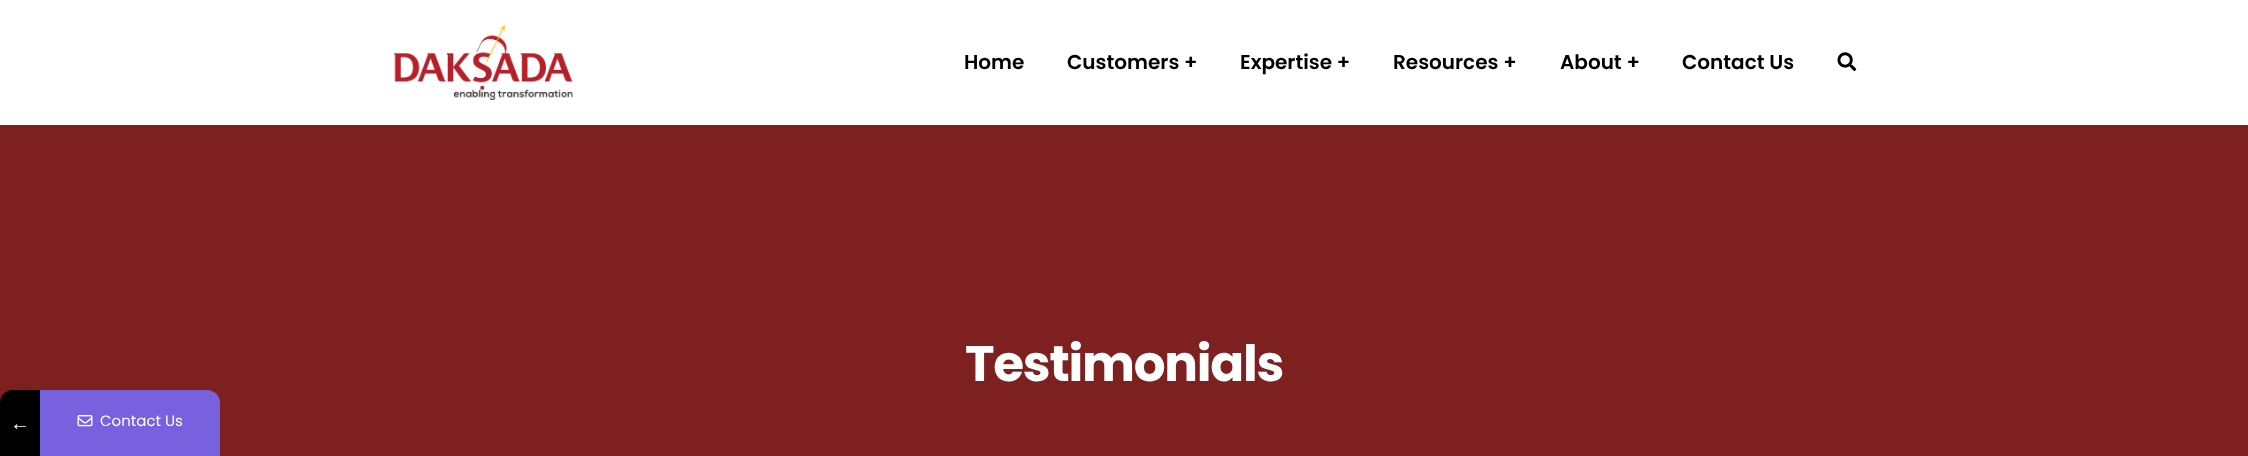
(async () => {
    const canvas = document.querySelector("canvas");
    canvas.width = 2248;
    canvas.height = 456;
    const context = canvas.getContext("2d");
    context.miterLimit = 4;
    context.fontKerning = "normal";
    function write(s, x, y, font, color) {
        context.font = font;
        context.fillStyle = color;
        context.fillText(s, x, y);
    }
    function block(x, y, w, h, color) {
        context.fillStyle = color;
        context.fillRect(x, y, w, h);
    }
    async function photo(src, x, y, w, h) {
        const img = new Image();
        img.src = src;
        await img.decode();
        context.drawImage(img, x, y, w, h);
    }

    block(0, 0, 2248, 456, "rgb(255, 255, 255)");
    await photo("media/1.png", 393, 25, 180, 75);
    write("Home", 964, 69, "600 20px Poppins", "rgb(0, 0, 0)");
    write("Customers +", 1067, 69, "600 20px Poppins", "rgb(0, 0, 0)");
    write("Expertise +", 1240, 69, "600 20px Poppins", "rgb(0, 0, 0)");
    write("Resources +", 1393, 69, "600 20px Poppins", "rgb(0, 0, 0)");
    write("About +", 1560, 69, "600 20px Poppins", "rgb(0, 0, 0)");
    write("Contact Us", 1682, 69, "600 20px Poppins", "rgb(0, 0, 0)");
    await photo("media/2.png", 1837, 52, 20, 19);
    block(0, 125, 2248, 331, "rgb(126, 32, 32)");
    context.letterSpacing = "-1.25px";
    write("Testimonials", 965, 381, "bold 50px Poppins", "rgb(255, 255, 255)");
    context.fillStyle = "rgba(0, 0, 0, 0.16)";
    context.filter = "blur(4px)";
    context.beginPath();
    context.roundRect(0, 394, 40, 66, 13);
    context.fill();
    context.filter = "none";
    context.fillStyle = "rgb(0, 0, 0)";
    context.beginPath();
    context.roundRect(0, 390, 40, 66, [13, 0, 0, 0]);
    context.fill();
    context.letterSpacing = "0px";
    write("←", 10, 430, "20px Liberation Serif", "rgb(255, 255, 255)");
    context.fillStyle = "rgb(119, 97, 223)";
    context.beginPath();
    context.roundRect(40, 390, 180, 66, [0, 13, 0, 0]);
    context.fill();
    await photo("media/3.png", 77, 415, 16, 12);
    write("Contact Us", 100, 426, "15px Poppins", "rgb(255, 255, 255)");
})();
